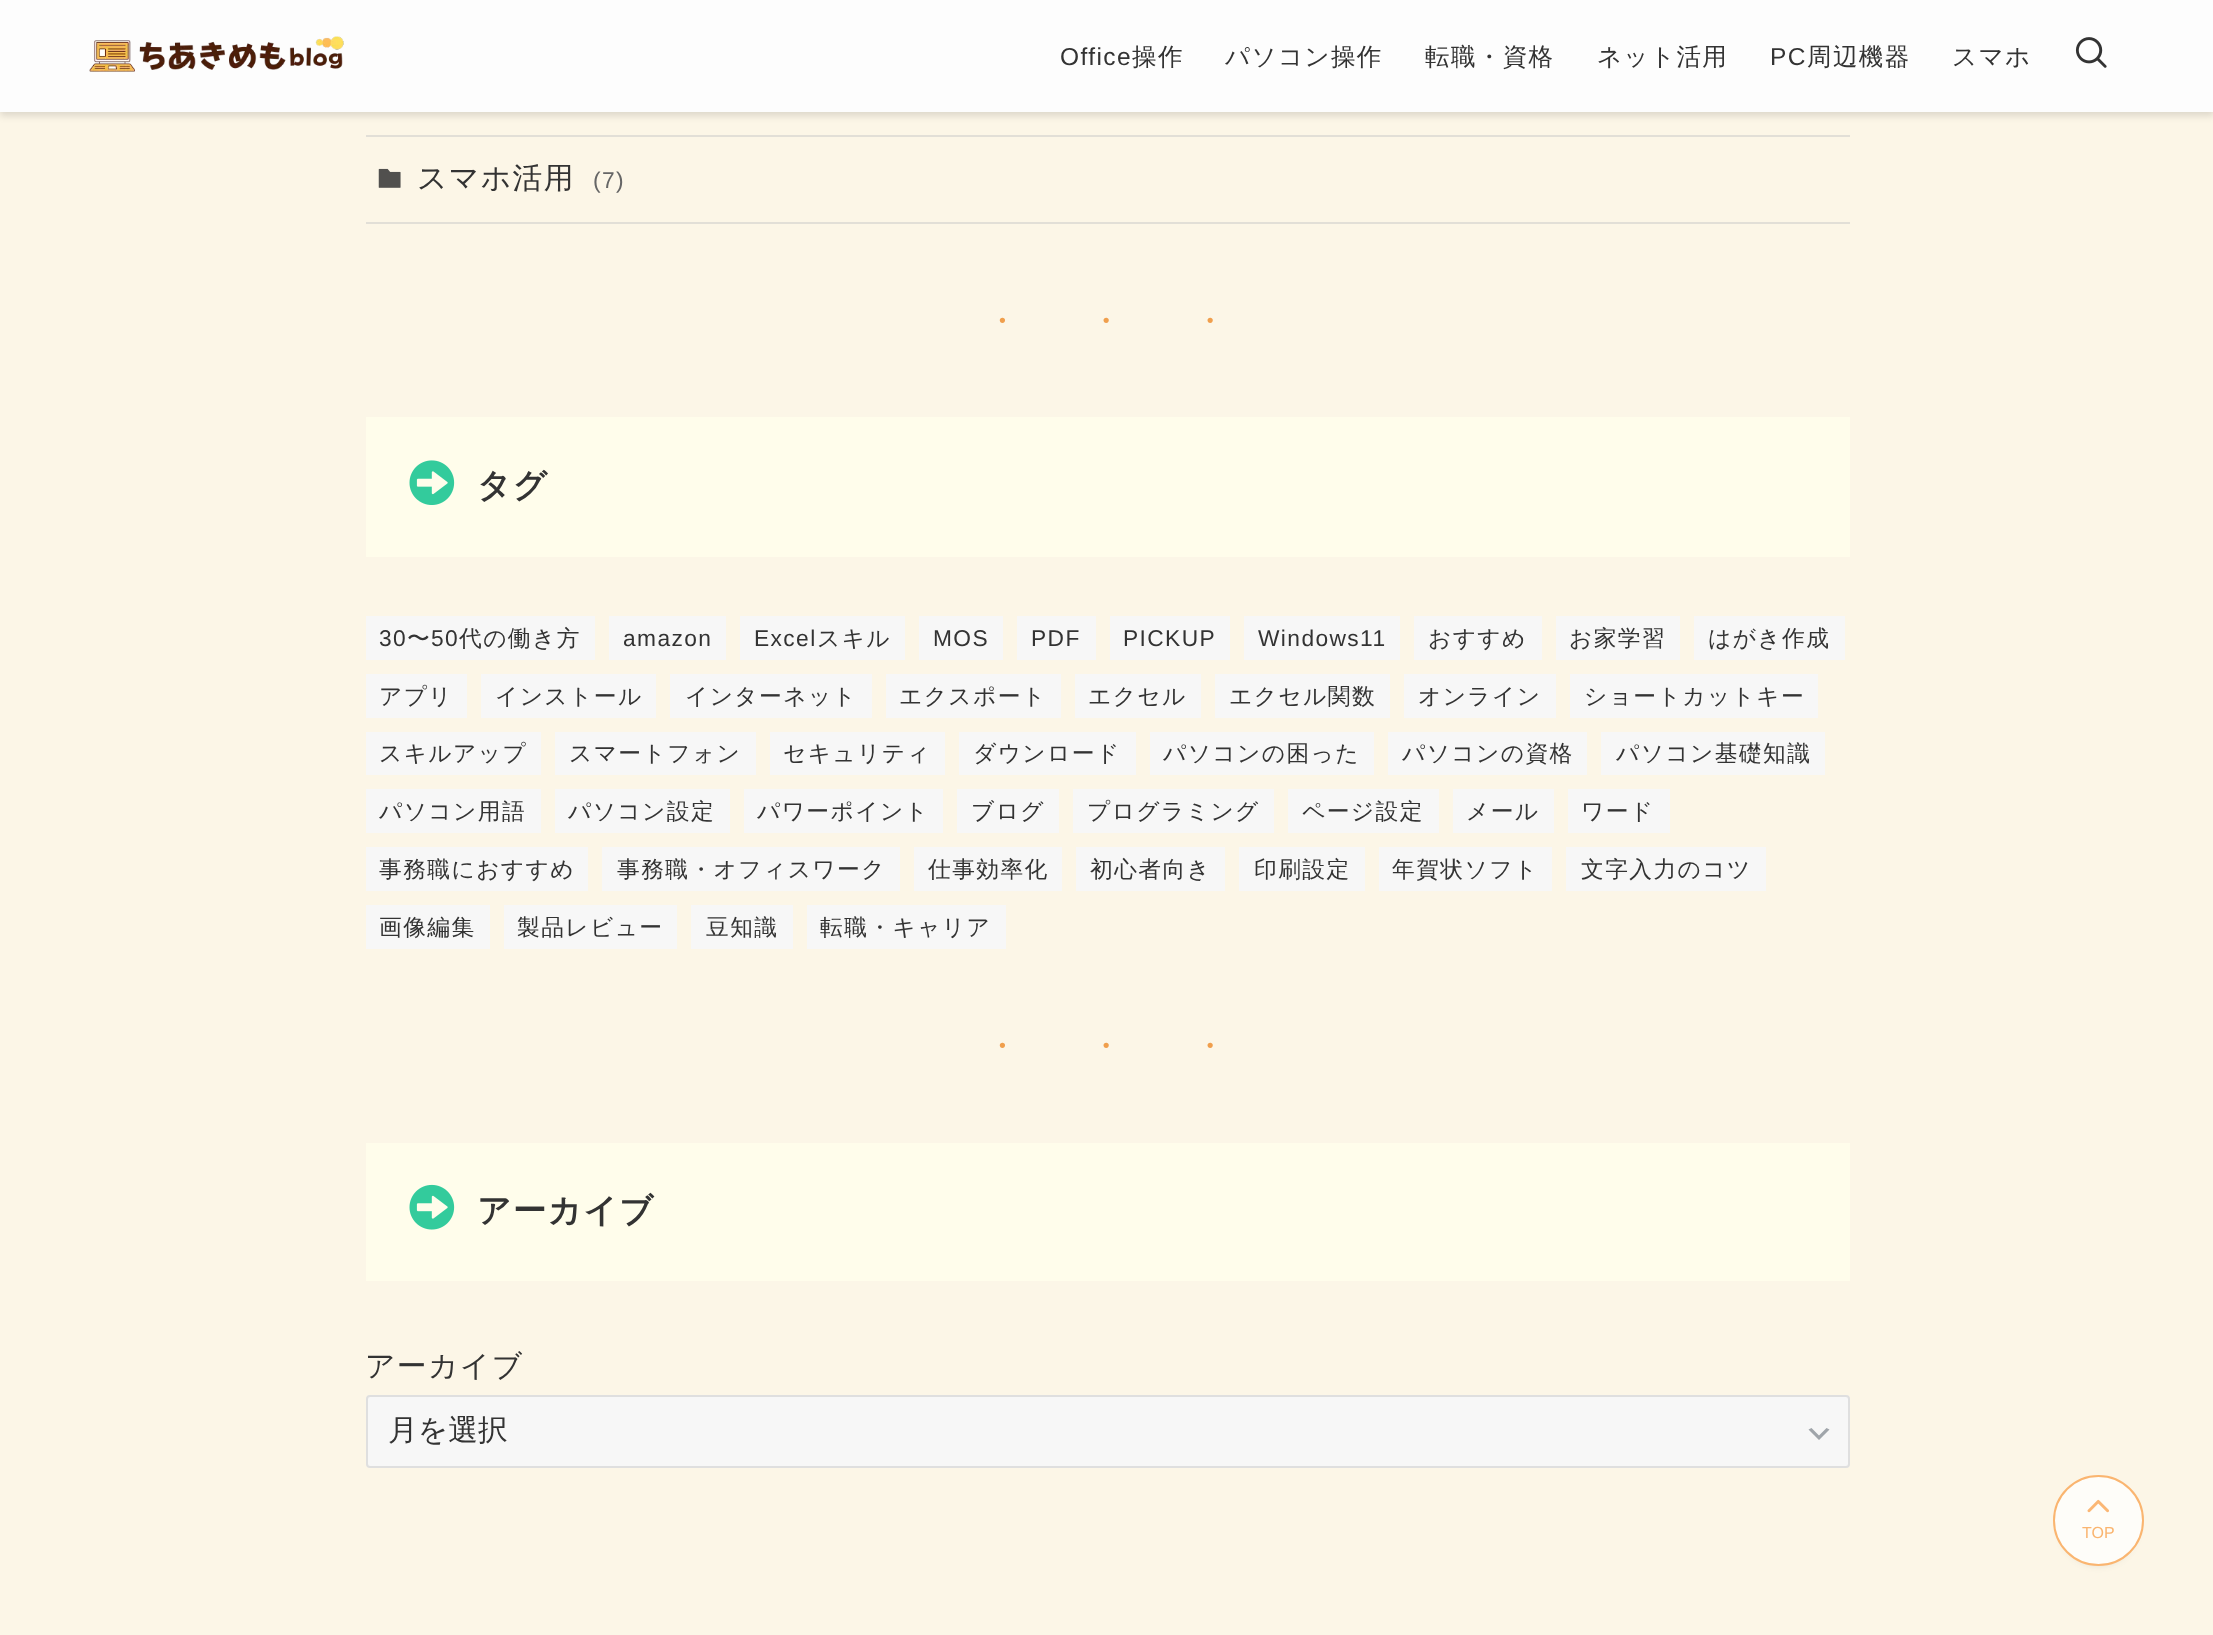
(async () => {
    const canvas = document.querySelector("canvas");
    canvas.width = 2213;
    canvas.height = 1635;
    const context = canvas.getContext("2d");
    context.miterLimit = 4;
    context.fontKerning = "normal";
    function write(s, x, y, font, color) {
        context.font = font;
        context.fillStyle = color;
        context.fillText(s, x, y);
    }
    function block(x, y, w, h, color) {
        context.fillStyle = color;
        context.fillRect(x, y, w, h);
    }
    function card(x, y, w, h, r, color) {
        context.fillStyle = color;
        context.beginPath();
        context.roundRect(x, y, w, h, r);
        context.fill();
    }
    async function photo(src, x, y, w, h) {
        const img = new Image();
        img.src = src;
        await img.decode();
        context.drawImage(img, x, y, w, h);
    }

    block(0, 0, 2213, 1635, "rgb(252, 246, 231)");
    context.fillStyle = "rgba(0, 0, 0, 0.12)";
    context.filter = "blur(3.5px)";
    context.beginPath();
    context.rect(0, 4, 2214, 112);
    context.fill();
    context.filter = "none";
    block(0, 0, 2213, 112, "rgb(253, 253, 253)");
    await photo("media/1.png", 89, 36, 255, 36);
    context.letterSpacing = "1.4px";
    write("Office", 1060, 65, "24.5px Liberation Sans", "rgb(51, 51, 51)");
    write("操作", 1132, 65, "500 24.5px WenQuanYi Zen Hei", "rgb(51, 51, 51)");
    write("パソコン操作", 1225, 65, "500 24.5px WenQuanYi Zen Hei", "rgb(51, 51, 51)");
    write("転職・資格", 1425, 65, "500 24.5px WenQuanYi Zen Hei", "rgb(51, 51, 51)");
    write("ネット活用", 1597, 65, "500 24.5px WenQuanYi Zen Hei", "rgb(51, 51, 51)");
    write("PC", 1770, 65, "24.5px Liberation Sans", "rgb(51, 51, 51)");
    write("周辺機器", 1807, 65, "500 24.5px WenQuanYi Zen Hei", "rgb(51, 51, 51)");
    write("スマホ", 1952, 65, "500 24.5px WenQuanYi Zen Hei", "rgb(51, 51, 51)");
    await photo("media/2.png", 2075, 37, 32, 31);
    block(366, 135, 1484, 2, "rgb(226, 223, 215)");
    block(366, 222, 1484, 2, "rgb(226, 223, 215)");
    await photo("media/3.png", 378, 168, 23, 20);
    write("スマホ活用", 417, 188, "500 29.75px WenQuanYi Zen Hei", "rgb(51, 51, 51)");
    write("(7)", 593, 188, "22.75px Liberation Sans", "rgb(102, 102, 102)");
    context.letterSpacing = "89px";
    write("···", 995, 335, "44.5px Liberation Serif", "rgb(240, 159, 77)");
    block(366, 417, 1484, 140, "rgb(255, 253, 235)");
    await photo("media/4.png", 409, 460, 46, 45);
    context.letterSpacing = "1.4px";
    write("タグ", 477, 497, "bold 33.5px WenQuanYi Zen Hei", "rgb(51, 51, 51)");
    block(366, 616, 229, 44, "rgb(247, 247, 247)");
    write("30", 379, 646, "22.75px Liberation Sans", "rgb(51, 51, 51)");
    write("〜", 407, 646, "500 22.75px WenQuanYi Zen Hei", "rgb(51, 51, 51)");
    write("50", 431, 646, "22.75px Liberation Sans", "rgb(51, 51, 51)");
    write("代の働き方", 459, 646, "500 22.75px WenQuanYi Zen Hei", "rgb(51, 51, 51)");
    block(609, 616, 117, 44, "rgb(247, 247, 247)");
    write("amazon", 623, 646, "22.75px Liberation Sans", "rgb(51, 51, 51)");
    block(740, 616, 165, 44, "rgb(247, 247, 247)");
    write("Excel", 754, 646, "22.75px Liberation Sans", "rgb(51, 51, 51)");
    write("スキル", 817, 646, "500 22.75px WenQuanYi Zen Hei", "rgb(51, 51, 51)");
    block(919, 616, 84, 44, "rgb(247, 247, 247)");
    write("MOS", 933, 646, "22.75px Liberation Sans", "rgb(51, 51, 51)");
    block(1017, 616, 79, 44, "rgb(247, 247, 247)");
    write("PDF", 1031, 646, "22.75px Liberation Sans", "rgb(51, 51, 51)");
    block(1110, 616, 120, 44, "rgb(247, 247, 247)");
    write("PICKUP", 1123, 646, "22.75px Liberation Sans", "rgb(51, 51, 51)");
    block(1244, 616, 156, 44, "rgb(247, 247, 247)");
    write("Windows11", 1258, 646, "22.75px Liberation Sans", "rgb(51, 51, 51)");
    block(1414, 616, 128, 44, "rgb(247, 247, 247)");
    write("おすすめ", 1428, 646, "500 22.75px WenQuanYi Zen Hei", "rgb(51, 51, 51)");
    block(1556, 616, 124, 44, "rgb(247, 247, 247)");
    write("お家学習", 1569, 646, "500 22.75px WenQuanYi Zen Hei", "rgb(51, 51, 51)");
    block(1694, 616, 151, 44, "rgb(247, 247, 247)");
    write("はがき作成", 1708, 646, "500 22.75px WenQuanYi Zen Hei", "rgb(51, 51, 51)");
    block(366, 674, 101, 44, "rgb(247, 247, 247)");
    write("アプリ", 379, 704, "500 22.75px WenQuanYi Zen Hei", "rgb(51, 51, 51)");
    block(481, 674, 175, 44, "rgb(247, 247, 247)");
    write("インストール", 495, 704, "500 22.75px WenQuanYi Zen Hei", "rgb(51, 51, 51)");
    block(670, 674, 202, 44, "rgb(247, 247, 247)");
    write("インターネット", 685, 704, "500 22.75px WenQuanYi Zen Hei", "rgb(51, 51, 51)");
    block(886, 674, 175, 44, "rgb(247, 247, 247)");
    write("エクスポート", 899, 704, "500 22.75px WenQuanYi Zen Hei", "rgb(51, 51, 51)");
    block(1075, 674, 126, 44, "rgb(247, 247, 247)");
    write("エクセル", 1088, 704, "500 22.75px WenQuanYi Zen Hei", "rgb(51, 51, 51)");
    block(1215, 674, 175, 44, "rgb(247, 247, 247)");
    write("エクセル関数", 1229, 704, "500 22.75px WenQuanYi Zen Hei", "rgb(51, 51, 51)");
    block(1404, 674, 152, 44, "rgb(247, 247, 247)");
    write("オンライン", 1418, 704, "500 22.75px WenQuanYi Zen Hei", "rgb(51, 51, 51)");
    block(1570, 674, 248, 44, "rgb(247, 247, 247)");
    write("ショートカットキー", 1584, 704, "500 22.75px WenQuanYi Zen Hei", "rgb(51, 51, 51)");
    block(366, 732, 175, 43, "rgb(247, 247, 247)");
    write("スキルアップ", 379, 761, "500 22.75px WenQuanYi Zen Hei", "rgb(51, 51, 51)");
    block(555, 732, 201, 43, "rgb(247, 247, 247)");
    write("スマートフォン", 569, 761, "500 22.75px WenQuanYi Zen Hei", "rgb(51, 51, 51)");
    block(770, 732, 175, 43, "rgb(247, 247, 247)");
    write("セキュリティ", 783, 761, "500 22.75px WenQuanYi Zen Hei", "rgb(51, 51, 51)");
    block(959, 732, 177, 43, "rgb(247, 247, 247)");
    write("ダウンロード", 973, 761, "500 22.75px WenQuanYi Zen Hei", "rgb(51, 51, 51)");
    block(1150, 732, 224, 43, "rgb(247, 247, 247)");
    write("パソコンの困った", 1163, 761, "500 22.75px WenQuanYi Zen Hei", "rgb(51, 51, 51)");
    block(1388, 732, 199, 43, "rgb(247, 247, 247)");
    write("パソコンの資格", 1402, 761, "500 22.75px WenQuanYi Zen Hei", "rgb(51, 51, 51)");
    block(1601, 732, 224, 43, "rgb(247, 247, 247)");
    write("パソコン基礎知識", 1616, 761, "500 22.75px WenQuanYi Zen Hei", "rgb(51, 51, 51)");
    block(366, 789, 175, 44, "rgb(247, 247, 247)");
    write("パソコン用語", 379, 819, "500 22.75px WenQuanYi Zen Hei", "rgb(51, 51, 51)");
    block(555, 789, 175, 44, "rgb(247, 247, 247)");
    write("パソコン設定", 568, 819, "500 22.75px WenQuanYi Zen Hei", "rgb(51, 51, 51)");
    block(744, 789, 199, 44, "rgb(247, 247, 247)");
    write("パワーポイント", 757, 819, "500 22.75px WenQuanYi Zen Hei", "rgb(51, 51, 51)");
    block(957, 789, 102, 44, "rgb(247, 247, 247)");
    write("ブログ", 971, 819, "500 22.75px WenQuanYi Zen Hei", "rgb(51, 51, 51)");
    block(1073, 789, 201, 44, "rgb(247, 247, 247)");
    write("プログラミング", 1087, 819, "500 22.75px WenQuanYi Zen Hei", "rgb(51, 51, 51)");
    block(1288, 789, 151, 44, "rgb(247, 247, 247)");
    write("ページ設定", 1302, 819, "500 22.75px WenQuanYi Zen Hei", "rgb(51, 51, 51)");
    block(1453, 789, 101, 44, "rgb(247, 247, 247)");
    write("メール", 1466, 819, "500 22.75px WenQuanYi Zen Hei", "rgb(51, 51, 51)");
    block(1568, 789, 102, 44, "rgb(247, 247, 247)");
    write("ワード", 1581, 819, "500 22.75px WenQuanYi Zen Hei", "rgb(51, 51, 51)");
    block(366, 847, 222, 44, "rgb(247, 247, 247)");
    write("事務職におすすめ", 379, 877, "500 22.75px WenQuanYi Zen Hei", "rgb(51, 51, 51)");
    block(602, 847, 298, 44, "rgb(247, 247, 247)");
    write("事務職・オフィスワーク", 617, 877, "500 22.75px WenQuanYi Zen Hei", "rgb(51, 51, 51)");
    block(914, 847, 148, 44, "rgb(247, 247, 247)");
    write("仕事効率化", 928, 877, "500 22.75px WenQuanYi Zen Hei", "rgb(51, 51, 51)");
    block(1076, 847, 149, 44, "rgb(247, 247, 247)");
    write("初心者向き", 1090, 877, "500 22.75px WenQuanYi Zen Hei", "rgb(51, 51, 51)");
    block(1239, 847, 126, 44, "rgb(247, 247, 247)");
    write("印刷設定", 1254, 877, "500 22.75px WenQuanYi Zen Hei", "rgb(51, 51, 51)");
    block(1379, 847, 173, 44, "rgb(247, 247, 247)");
    write("年賀状ソフト", 1392, 877, "500 22.75px WenQuanYi Zen Hei", "rgb(51, 51, 51)");
    block(1566, 847, 200, 44, "rgb(247, 247, 247)");
    write("文字入力のコツ", 1581, 877, "500 22.75px WenQuanYi Zen Hei", "rgb(51, 51, 51)");
    block(366, 905, 124, 44, "rgb(247, 247, 247)");
    write("画像編集", 379, 935, "500 22.75px WenQuanYi Zen Hei", "rgb(51, 51, 51)");
    block(504, 905, 173, 44, "rgb(247, 247, 247)");
    write("製品レビュー", 517, 935, "500 22.75px WenQuanYi Zen Hei", "rgb(51, 51, 51)");
    block(691, 905, 102, 44, "rgb(247, 247, 247)");
    write("豆知識", 706, 935, "500 22.75px WenQuanYi Zen Hei", "rgb(51, 51, 51)");
    block(807, 905, 199, 44, "rgb(247, 247, 247)");
    write("転職・キャリア", 820, 935, "500 22.75px WenQuanYi Zen Hei", "rgb(51, 51, 51)");
    context.letterSpacing = "89px";
    write("···", 995, 1060, "44.5px Liberation Serif", "rgb(240, 159, 77)");
    block(366, 1143, 1484, 138, "rgb(255, 253, 235)");
    await photo("media/5.png", 409, 1184, 46, 46);
    context.letterSpacing = "1.4px";
    write("アーカイブ", 477, 1222, "bold 33.5px WenQuanYi Zen Hei", "rgb(51, 51, 51)");
    write("アーカイブ", 365, 1376, "500 29.75px WenQuanYi Zen Hei", "rgb(51, 51, 51)");
    card(366, 1395, 1484, 73, 4, "rgb(247, 247, 247)");
    context.fillStyle = "rgb(160, 165, 170)";
    context.beginPath();
    context.moveTo(1811.5, 1428);
    context.lineTo(1819, 1435.5);
    context.lineTo(1826.5, 1428);
    context.lineTo(1829.5, 1429.5);
    context.lineTo(1819, 1440);
    context.lineTo(1808.5, 1429.5);
    context.closePath();
    context.fill();
    context.beginPath();
    context.roundRect(367, 1396, 1482, 71, 3);
    context.strokeStyle = "rgba(199, 199, 199, 0.5)";
    context.lineWidth = 2;
    context.stroke();
    context.letterSpacing = "0px";
    write("月を選択", 388, 1440, "500 29.75px WenQuanYi Zen Hei", "rgb(51, 51, 51)");
    context.fillStyle = "rgba(63, 62, 58, 0.1)";
    context.filter = "blur(3.5px)";
    context.beginPath();
    context.roundRect(2060, 1489, 77, 77, 38.5);
    context.fill();
    context.filter = "none";
    context.fillStyle = "rgb(254, 253, 249)";
    context.beginPath();
    context.arc(2098.5, 1520.5, 44.5, 0, Math.PI * 2);
    context.fill();
    context.strokeStyle = "rgb(250, 181, 112)";
    context.stroke();
    await photo("media/6.png", 2087, 1499, 22, 14);
    write("TOP", 2082, 1538, "16px Liberation Sans", "rgb(250, 181, 112)");
})();
